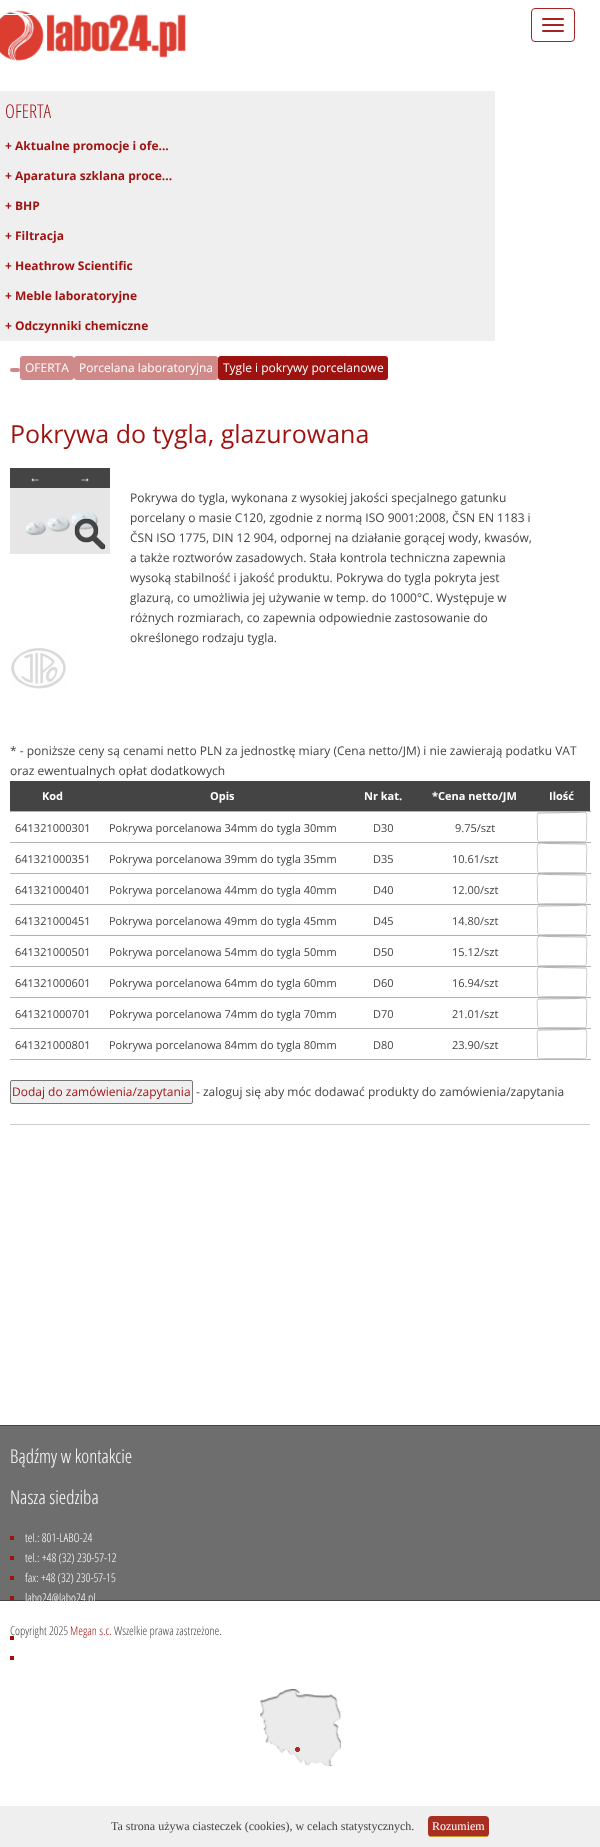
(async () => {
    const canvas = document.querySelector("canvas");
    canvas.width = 600;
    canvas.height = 1847;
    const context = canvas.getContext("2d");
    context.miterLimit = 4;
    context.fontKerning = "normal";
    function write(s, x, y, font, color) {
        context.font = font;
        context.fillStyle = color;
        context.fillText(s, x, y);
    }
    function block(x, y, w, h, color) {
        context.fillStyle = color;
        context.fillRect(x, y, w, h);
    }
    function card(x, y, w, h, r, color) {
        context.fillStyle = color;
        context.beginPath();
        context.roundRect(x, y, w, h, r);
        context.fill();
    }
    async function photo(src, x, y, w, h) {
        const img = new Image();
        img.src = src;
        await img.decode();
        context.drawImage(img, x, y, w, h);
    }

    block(0, 0, 600, 1847, "rgb(255, 255, 255)");
    await photo("media/1.png", 0, 10, 186, 51);
    block(0, 14, 42, 1, "rgb(255, 255, 255)");
    context.beginPath();
    context.roundRect(531.5, 8.5, 43, 33, 3.5);
    context.strokeStyle = "rgb(166, 34, 37)";
    context.stroke();
    card(542, 18, 22, 2, 1, "rgb(166, 34, 37)");
    card(542, 24, 22, 2, 1, "rgb(166, 34, 37)");
    card(542, 30, 22, 2, 1, "rgb(166, 34, 37)");
    block(0, 91, 495, 250, "rgb(239, 239, 239)");
    write("OFERTA", 5, 118, "300 19px Open Sans Condensed", "rgb(156, 9, 13)");
    write("+ Aktualne promocje i ofe...", 5, 150, "bold 12px Open Sans", "rgb(158, 18, 16)");
    write("+ Aparatura szklana proce...", 5, 180, "bold 12px Open Sans", "rgb(158, 18, 16)");
    write("+ BHP", 5, 210, "bold 12px Open Sans", "rgb(158, 18, 16)");
    write("+ Filtracja", 5, 240, "bold 12px Open Sans", "rgb(158, 18, 16)");
    write("+ Heathrow Scientific", 5, 270, "bold 12px Open Sans", "rgb(158, 18, 16)");
    write("+ Meble laboratoryjne", 5, 300, "bold 12px Open Sans", "rgb(158, 18, 16)");
    write("+ Odczynniki chemiczne", 5, 330, "bold 12px Open Sans", "rgb(158, 18, 16)");
    card(10, 368, 10, 4, 2, "rgb(207, 137, 136)");
    card(20, 356, 54, 24, 3, "rgb(207, 137, 136)");
    write("OFERTA", 25, 372, "12px Open Sans", "rgb(255, 255, 255)");
    card(74, 356, 144, 24, 3, "rgb(207, 137, 136)");
    write("Porcelana laboratoryjna", 79, 372, "12px Open Sans", "rgb(255, 255, 255)");
    card(218, 356, 170, 24, 3, "rgb(158, 18, 16)");
    write("Tygle i pokrywy porcelanowe", 223, 372, "12px Open Sans", "rgb(255, 255, 255)");
    write("Pokrywa do tygla, glazurowana", 10, 443, "25px Open Sans", "rgb(158, 18, 16)");
    block(10, 468, 100, 20, "rgb(68, 68, 68)");
    write("←", 29, 482, "12px Liberation Sans", "rgb(255, 255, 255)");
    write("→", 79, 482, "12px Liberation Sans", "rgb(255, 255, 255)");
    await photo("media/2.png", 10, 488, 100, 66);
    await photo("media/3.png", 74, 518, 32, 32);
    write("Pokrywa do tygla, wykonana z wysokiej jakości specjalnego gatunku", 130, 502, "12px Open Sans", "rgb(68, 68, 68)");
    write("porcelany o masie C120, zgodnie z normą ISO 9001:2008, ČSN EN 1183 i", 130, 522, "12px Open Sans", "rgb(68, 68, 68)");
    write("ČSN ISO 1775, DIN 12 904, odpornej na działanie gorącej wody, kwasów,", 130, 542, "12px Open Sans", "rgb(68, 68, 68)");
    write("a także roztworów zasadowych. Stała kontrola techniczna zapewnia", 130, 562, "12px Open Sans", "rgb(68, 68, 68)");
    write("wysoką stabilność i jakość produktu. Pokrywa do tygla pokryta jest", 130, 582, "12px Open Sans", "rgb(68, 68, 68)");
    write("glazurą, co umożliwia jej używanie w temp. do 1000°C. Występuje w", 130, 602, "12px Open Sans", "rgb(68, 68, 68)");
    write("różnych rozmiarach, co zapewnia odpowiednie zastosowanie do", 130, 622, "12px Open Sans", "rgb(68, 68, 68)");
    write("określonego rodzaju tygla.", 130, 642, "12px Open Sans", "rgb(68, 68, 68)");
    await photo("media/4.png", 11, 648, 55, 41);
    write("* - poniższe ceny są cenami netto PLN za jednostkę miary (Cena netto/JM) i nie zawierają podatku VAT", 10, 755, "12px Open Sans", "rgb(68, 68, 68)");
    write("oraz ewentualnych opłat dodatkowych", 10, 775, "12px Open Sans", "rgb(68, 68, 68)");
    context.beginPath();
    context.moveTo(538, 813);
    context.lineTo(577.5, 812.5);
    context.bezierCurveTo(580.5, 812.5, 584, 811, 586, 813);
    context.strokeStyle = "rgb(179, 179, 179)";
    context.stroke();
    block(10, 811, 581, 1, "rgb(179, 179, 181)");
    block(10, 781, 580, 30, "rgb(68, 68, 68)");
    write("Kod", 42, 800, "bold 11px Open Sans", "rgb(255, 255, 255)");
    write("Opis", 210, 800, "bold 11px Open Sans", "rgb(255, 255, 255)");
    write("Nr kat.", 364, 800, "bold 11px Open Sans", "rgb(255, 255, 255)");
    write("*Cena netto/JM", 432, 800, "bold 11px Open Sans", "rgb(255, 255, 255)");
    write("Ilość", 549, 800, "bold 11px Open Sans", "rgb(255, 255, 255)");
    context.beginPath();
    context.moveTo(586, 813);
    context.bezierCurveTo(587.5, 814.5, 586.5, 825, 586.5, 827);
    context.lineTo(586.5, 835.5);
    context.bezierCurveTo(586.5, 843.5, 586.5, 841.5, 577.5, 841.5);
    context.lineTo(546.5, 841.5);
    context.bezierCurveTo(537.5, 841.5, 537.5, 843.5, 537.5, 835.5);
    context.lineTo(537.5, 827);
    context.bezierCurveTo(537.5, 825, 536.5, 814.5, 538, 813);
    context.strokeStyle = "rgb(204, 204, 204)";
    context.stroke();
    context.beginPath();
    context.moveTo(538, 844);
    context.bezierCurveTo(540, 842, 543.5, 843.5, 546.5, 843.5);
    context.lineTo(586, 844);
    context.strokeStyle = "rgb(179, 179, 179)";
    context.stroke();
    block(10, 842, 581, 1, "rgb(179, 179, 181)");
    write("641321000301", 15, 832, "11px Open Sans", "rgb(68, 68, 68)");
    write("Pokrywa porcelanowa 34mm do tygla 30mm", 109, 832, "11px Open Sans", "rgb(68, 68, 68)");
    write("D30", 373, 832, "11px Open Sans", "rgb(68, 68, 68)");
    write("9.75/szt", 455, 832, "11px Open Sans", "rgb(68, 68, 68)");
    context.beginPath();
    context.moveTo(586, 844);
    context.bezierCurveTo(587.5, 845.5, 586.5, 856, 586.5, 858);
    context.lineTo(586.5, 866.5);
    context.bezierCurveTo(586.5, 874.5, 586.5, 872.5, 577.5, 872.5);
    context.lineTo(546.5, 872.5);
    context.bezierCurveTo(537.5, 872.5, 537.5, 874.5, 537.5, 866.5);
    context.lineTo(537.5, 858);
    context.bezierCurveTo(537.5, 856, 536.5, 845.5, 538, 844);
    context.strokeStyle = "rgb(204, 204, 204)";
    context.stroke();
    context.beginPath();
    context.moveTo(538, 875);
    context.bezierCurveTo(540, 873, 543.5, 874.5, 546.5, 874.5);
    context.lineTo(586, 875);
    context.strokeStyle = "rgb(179, 179, 179)";
    context.stroke();
    block(10, 873, 581, 1, "rgb(179, 179, 181)");
    write("641321000351", 15, 863, "11px Open Sans", "rgb(68, 68, 68)");
    write("Pokrywa porcelanowa 39mm do tygla 35mm", 109, 863, "11px Open Sans", "rgb(68, 68, 68)");
    write("D35", 373, 863, "11px Open Sans", "rgb(68, 68, 68)");
    write("10.61/szt", 452, 863, "11px Open Sans", "rgb(68, 68, 68)");
    context.beginPath();
    context.moveTo(586, 875);
    context.bezierCurveTo(587.5, 876.5, 586.5, 887, 586.5, 889);
    context.lineTo(586.5, 897.5);
    context.bezierCurveTo(586.5, 905.5, 586.5, 903.5, 577.5, 903.5);
    context.lineTo(546.5, 903.5);
    context.bezierCurveTo(537.5, 903.5, 537.5, 905.5, 537.5, 897.5);
    context.lineTo(537.5, 889);
    context.bezierCurveTo(537.5, 887, 536.5, 876.5, 538, 875);
    context.strokeStyle = "rgb(204, 204, 204)";
    context.stroke();
    context.beginPath();
    context.moveTo(538, 906);
    context.lineTo(577.5, 905.5);
    context.bezierCurveTo(580.5, 905.5, 584, 904, 586, 906);
    context.strokeStyle = "rgb(179, 179, 179)";
    context.stroke();
    block(10, 904, 581, 1, "rgb(179, 179, 181)");
    write("641321000401", 15, 894, "11px Open Sans", "rgb(68, 68, 68)");
    write("Pokrywa porcelanowa 44mm do tygla 40mm", 109, 894, "11px Open Sans", "rgb(68, 68, 68)");
    write("D40", 373, 894, "11px Open Sans", "rgb(68, 68, 68)");
    write("12.00/szt", 452, 894, "11px Open Sans", "rgb(68, 68, 68)");
    context.beginPath();
    context.moveTo(586, 906);
    context.bezierCurveTo(587.5, 907.5, 586.5, 918, 586.5, 920);
    context.lineTo(586.5, 928.5);
    context.bezierCurveTo(586.5, 936.5, 586.5, 934.5, 577.5, 934.5);
    context.lineTo(546.5, 934.5);
    context.bezierCurveTo(537.5, 934.5, 537.5, 936.5, 537.5, 928.5);
    context.lineTo(537.5, 920);
    context.bezierCurveTo(537.5, 918, 536.5, 907.5, 538, 906);
    context.strokeStyle = "rgb(204, 204, 204)";
    context.stroke();
    context.beginPath();
    context.moveTo(538, 937);
    context.bezierCurveTo(540, 935, 543.5, 936.5, 546.5, 936.5);
    context.lineTo(586, 937);
    context.strokeStyle = "rgb(179, 179, 179)";
    context.stroke();
    block(10, 935, 581, 1, "rgb(179, 179, 181)");
    write("641321000451", 15, 925, "11px Open Sans", "rgb(68, 68, 68)");
    write("Pokrywa porcelanowa 49mm do tygla 45mm", 109, 925, "11px Open Sans", "rgb(68, 68, 68)");
    write("D45", 373, 925, "11px Open Sans", "rgb(68, 68, 68)");
    write("14.80/szt", 452, 925, "11px Open Sans", "rgb(68, 68, 68)");
    context.beginPath();
    context.moveTo(586, 937);
    context.bezierCurveTo(587.5, 938.5, 586.5, 949, 586.5, 951);
    context.lineTo(586.5, 959.5);
    context.bezierCurveTo(586.5, 967.5, 586.5, 965.5, 577.5, 965.5);
    context.lineTo(546.5, 965.5);
    context.bezierCurveTo(537.5, 965.5, 537.5, 967.5, 537.5, 959.5);
    context.lineTo(537.5, 951);
    context.bezierCurveTo(537.5, 949, 536.5, 938.5, 538, 937);
    context.strokeStyle = "rgb(204, 204, 204)";
    context.stroke();
    context.beginPath();
    context.moveTo(538, 968);
    context.bezierCurveTo(540, 966, 543.5, 967.5, 546.5, 967.5);
    context.lineTo(586, 968);
    context.strokeStyle = "rgb(179, 179, 179)";
    context.stroke();
    block(10, 966, 581, 1, "rgb(179, 179, 181)");
    write("641321000501", 15, 956, "11px Open Sans", "rgb(68, 68, 68)");
    write("Pokrywa porcelanowa 54mm do tygla 50mm", 109, 956, "11px Open Sans", "rgb(68, 68, 68)");
    write("D50", 373, 956, "11px Open Sans", "rgb(68, 68, 68)");
    write("15.12/szt", 452, 956, "11px Open Sans", "rgb(68, 68, 68)");
    context.beginPath();
    context.moveTo(586, 968);
    context.bezierCurveTo(587.5, 969.5, 586.5, 980, 586.5, 982);
    context.lineTo(586.5, 990.5);
    context.bezierCurveTo(586.5, 998.5, 586.5, 996.5, 577.5, 996.5);
    context.lineTo(546.5, 996.5);
    context.bezierCurveTo(537.5, 996.5, 537.5, 998.5, 537.5, 990.5);
    context.lineTo(537.5, 982);
    context.bezierCurveTo(537.5, 980, 536.5, 969.5, 538, 968);
    context.strokeStyle = "rgb(204, 204, 204)";
    context.stroke();
    context.beginPath();
    context.moveTo(538, 999);
    context.lineTo(577.5, 998.5);
    context.bezierCurveTo(580.5, 998.5, 584, 997, 586, 999);
    context.strokeStyle = "rgb(179, 179, 179)";
    context.stroke();
    block(10, 997, 581, 1, "rgb(179, 179, 181)");
    write("641321000601", 15, 987, "11px Open Sans", "rgb(68, 68, 68)");
    write("Pokrywa porcelanowa 64mm do tygla 60mm", 109, 987, "11px Open Sans", "rgb(68, 68, 68)");
    write("D60", 373, 987, "11px Open Sans", "rgb(68, 68, 68)");
    write("16.94/szt", 452, 987, "11px Open Sans", "rgb(68, 68, 68)");
    context.beginPath();
    context.moveTo(586, 999);
    context.bezierCurveTo(587.5, 1000.5, 586.5, 1011, 586.5, 1013);
    context.lineTo(586.5, 1021.5);
    context.bezierCurveTo(586.5, 1029.5, 586.5, 1027.5, 577.5, 1027.5);
    context.lineTo(546.5, 1027.5);
    context.bezierCurveTo(537.5, 1027.5, 537.5, 1029.5, 537.5, 1021.5);
    context.lineTo(537.5, 1013);
    context.bezierCurveTo(537.5, 1011, 536.5, 1000.5, 538, 999);
    context.strokeStyle = "rgb(204, 204, 204)";
    context.stroke();
    context.beginPath();
    context.moveTo(538, 1030);
    context.lineTo(577.5, 1029.5);
    context.bezierCurveTo(580.5, 1029.5, 584, 1028, 586, 1030);
    context.strokeStyle = "rgb(179, 179, 179)";
    context.stroke();
    block(10, 1028, 581, 1, "rgb(179, 179, 181)");
    write("641321000701", 15, 1018, "11px Open Sans", "rgb(68, 68, 68)");
    write("Pokrywa porcelanowa 74mm do tygla 70mm", 109, 1018, "11px Open Sans", "rgb(68, 68, 68)");
    write("D70", 373, 1018, "11px Open Sans", "rgb(68, 68, 68)");
    write("21.01/szt", 452, 1018, "11px Open Sans", "rgb(68, 68, 68)");
    context.beginPath();
    context.moveTo(586, 1030);
    context.bezierCurveTo(587.5, 1031.5, 586.5, 1042, 586.5, 1044);
    context.lineTo(586.5, 1052.5);
    context.bezierCurveTo(586.5, 1060.5, 586.5, 1058.5, 577.5, 1058.5);
    context.lineTo(546.5, 1058.5);
    context.bezierCurveTo(537.5, 1058.5, 537.5, 1060.5, 537.5, 1052.5);
    context.lineTo(537.5, 1044);
    context.bezierCurveTo(537.5, 1042, 536.5, 1031.5, 538, 1030);
    context.strokeStyle = "rgb(204, 204, 204)";
    context.stroke();
    block(10, 1059, 581, 1, "rgb(179, 179, 181)");
    write("641321000801", 15, 1049, "11px Open Sans", "rgb(68, 68, 68)");
    write("Pokrywa porcelanowa 84mm do tygla 80mm", 109, 1049, "11px Open Sans", "rgb(68, 68, 68)");
    write("D80", 373, 1049, "11px Open Sans", "rgb(68, 68, 68)");
    write("23.90/szt", 452, 1049, "11px Open Sans", "rgb(68, 68, 68)");
    context.fillStyle = "rgb(239, 239, 239)";
    context.beginPath();
    context.roundRect(10.5, 1080.5, 182, 23, 1.5);
    context.fill();
    context.strokeStyle = "rgb(118, 118, 118)";
    context.stroke();
    write("Dodaj do zamówienia/zapytania", 12, 1096, "12px Open Sans", "rgb(158, 18, 16)");
    write("- zaloguj się aby móc dodawać produkty do zamówienia/zapytania", 196, 1096, "12px Open Sans", "rgb(68, 68, 68)");
    block(10, 1124, 580, 1, "rgb(204, 204, 204)");
    block(0, 1426, 600, 174, "rgb(110, 110, 110)");
    block(0, 1425, 600, 1, "rgb(68, 68, 68)");
    block(0, 1600, 600, 1, "rgb(68, 68, 68)");
    write("Bądźmy w kontakcie", 10, 1463, "300 19px Open Sans Condensed", "rgb(255, 255, 255)");
    write("Nasza siedziba", 10, 1504, "300 19px Open Sans Condensed", "rgb(255, 255, 255)");
    block(10, 1536, 4, 4, "rgb(158, 18, 16)");
    write("tel.: 801-LABO-24", 25, 1542, "300 12px Open Sans Condensed", "rgb(255, 255, 255)");
    block(10, 1556, 4, 4, "rgb(158, 18, 16)");
    write("tel.: +48 (32) 230-57-12", 25, 1562, "300 12px Open Sans Condensed", "rgb(255, 255, 255)");
    block(10, 1576, 4, 4, "rgb(158, 18, 16)");
    write("fax: +48 (32) 230-57-15", 25, 1582, "300 12px Open Sans Condensed", "rgb(255, 255, 255)");
    block(10, 1596, 4, 4, "rgb(158, 18, 16)");
    write("labo24@labo24.pl", 25, 1602, "300 12px Open Sans Condensed", "rgb(255, 255, 255)");
    block(10, 1636, 4, 4, "rgb(158, 18, 16)");
    block(10, 1656, 4, 4, "rgb(158, 18, 16)");
    await photo("media/5.png", 260, 1689, 81, 77);
    write("Copyright 2025", 10, 1635, "300 12px Open Sans Condensed", "rgb(68, 68, 68)");
    write("Megan s.c.", 70, 1635, "300 12px Open Sans Condensed", "rgb(158, 18, 16)");
    write("Wszelkie prawa zastrzeżone.", 114, 1635, "300 12px Open Sans Condensed", "rgb(68, 68, 68)");
    block(0, 1806, 600, 41, "rgb(239, 239, 239)");
    write("Ta strona używa ciasteczek (cookies), w celach statystycznych.", 111, 1830, "12px Liberation Serif", "rgb(68, 68, 68)");
    card(428, 1816, 61, 21, 4, "rgb(169, 46, 34)");
    block(430, 1836, 57, 1, "rgb(202, 154, 50)");
    write("Rozumiem", 432, 1830, "12px Liberation Serif", "rgb(255, 255, 255)");
})();
